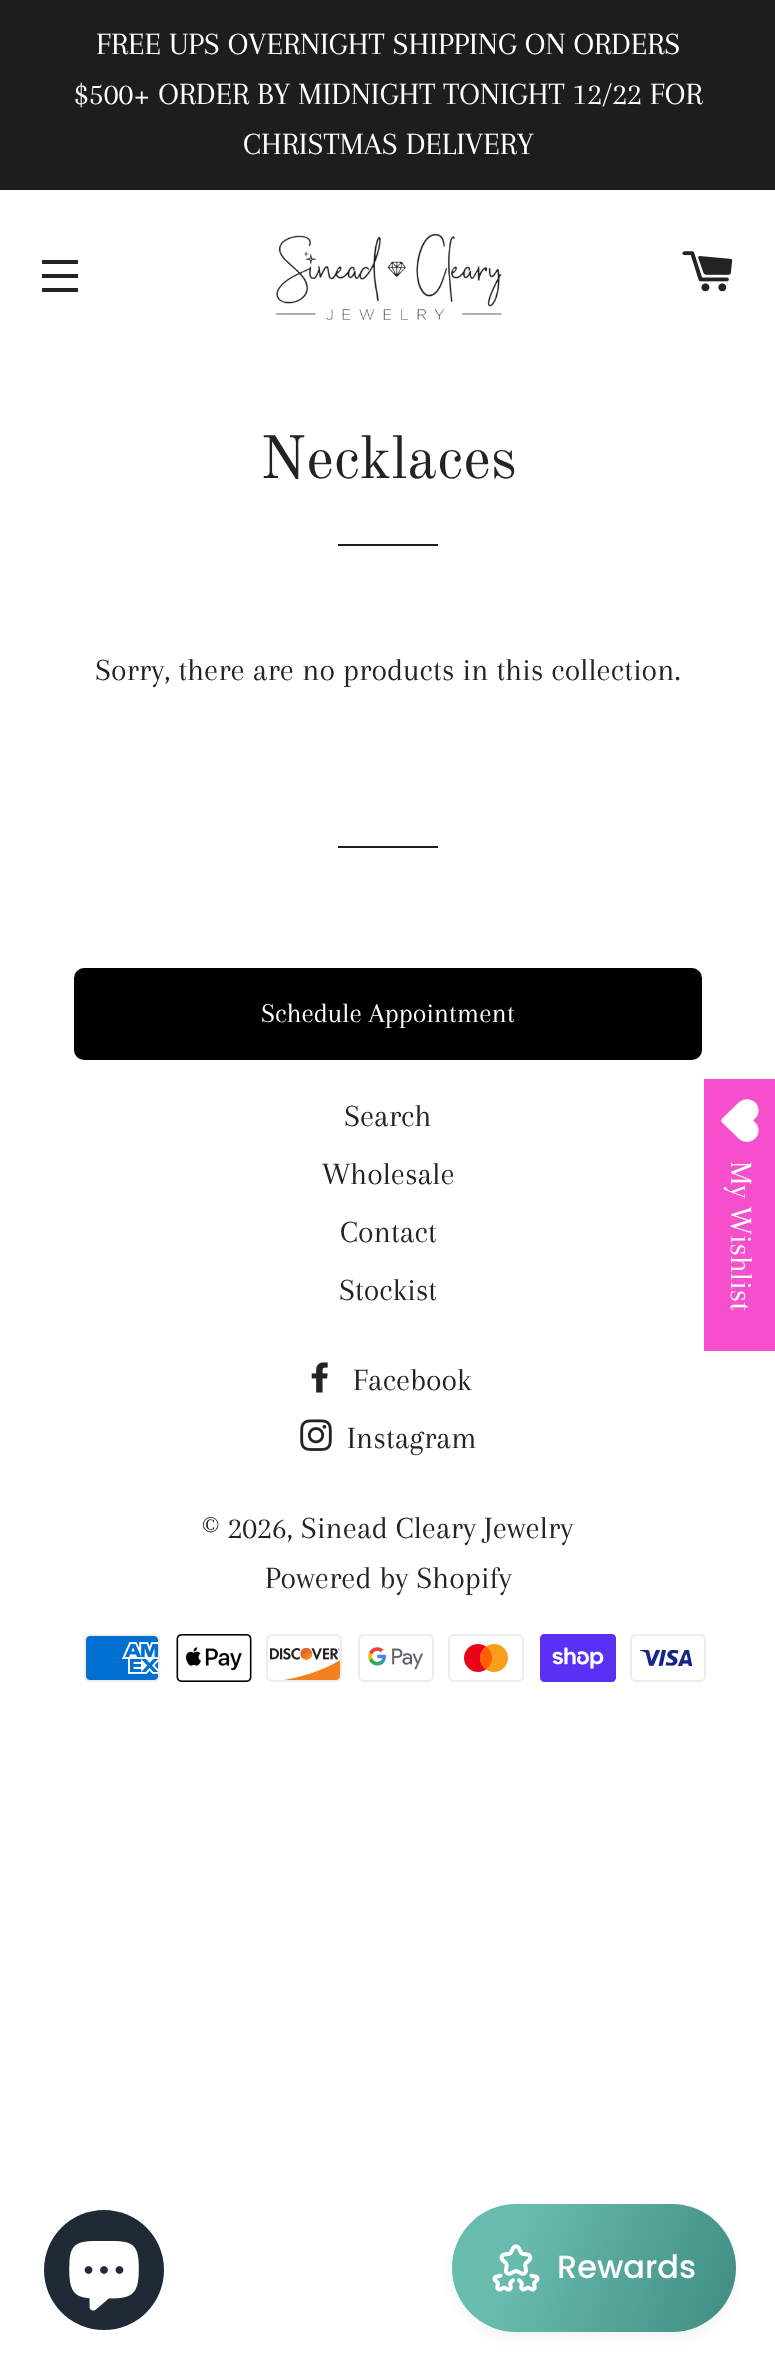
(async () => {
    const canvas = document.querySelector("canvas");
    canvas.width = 775;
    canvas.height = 2372;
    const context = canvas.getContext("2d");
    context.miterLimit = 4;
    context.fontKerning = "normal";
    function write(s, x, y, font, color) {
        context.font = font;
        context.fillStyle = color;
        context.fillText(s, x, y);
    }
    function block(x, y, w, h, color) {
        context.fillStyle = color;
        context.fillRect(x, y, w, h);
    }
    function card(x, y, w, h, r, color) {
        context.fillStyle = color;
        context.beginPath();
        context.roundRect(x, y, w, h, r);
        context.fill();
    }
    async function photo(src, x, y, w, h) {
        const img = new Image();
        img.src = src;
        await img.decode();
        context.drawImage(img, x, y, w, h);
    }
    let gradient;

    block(0, 0, 775, 2372, "rgb(255, 255, 255)");
    block(0, 0, 775, 190, "rgb(28, 29, 29)");
    write("FREE UPS OVERNIGHT SHIPPING ON ORDERS", 96, 54, "32px Arapey", "rgb(255, 255, 255)");
    write("$500+ ORDER BY MIDNIGHT TONIGHT 12/22 FOR", 74, 104, "32px Arapey", "rgb(255, 255, 255)");
    write("CHRISTMAS DELIVERY", 243, 154, "32px Arapey", "rgb(255, 255, 255)");
    block(42, 260, 36, 4, "rgb(34, 35, 35)");
    block(42, 274, 36, 4, "rgb(34, 35, 35)");
    block(42, 288, 36, 4, "rgb(34, 35, 35)");
    await photo("media/1.png", 275, 233, 227, 87);
    await photo("media/2.png", 682, 251, 51, 41);
    write("Necklaces", 260, 478, "60px Old Standard TT", "rgb(34, 35, 35)");
    block(338, 544, 100, 2, "rgb(28, 29, 29)");
    write("Sorry, there are no products in this collection.", 95, 680, "32px Arapey", "rgb(34, 35, 35)");
    block(338, 846, 100, 2, "rgb(28, 29, 29)");
    card(74, 968, 628, 92, 10, "rgb(0, 0, 0)");
    write("Schedule Appointment", 261, 1022, "28px Arapey", "rgb(255, 255, 255)");
    write("Search", 344, 1126, "32px Arapey", "rgb(34, 35, 35)");
    write("Wholesale", 322, 1184, "32px Arapey", "rgb(34, 35, 35)");
    write("Contact", 340, 1242, "32px Arapey", "rgb(34, 35, 35)");
    write("Stockist", 339, 1300, "32px Arapey", "rgb(34, 35, 35)");
    await photo("media/3.png", 311, 1362, 17, 31);
    write("Facebook", 353, 1390, "32px Arapey", "rgb(34, 35, 35)");
    await photo("media/4.png", 300, 1419, 32, 32);
    write("Instagram", 347, 1448, "32px Arapey", "rgb(34, 35, 35)");
    write("© 2026, Sinead Cleary Jewelry", 202, 1538, "32px Arapey", "rgb(34, 35, 35)");
    write("Powered by Shopify", 265, 1588, "32px Arapey", "rgb(34, 35, 35)");
    await photo("media/5.png", 84, 1634, 76, 48);
    await photo("media/6.png", 176, 1634, 76, 48);
    await photo("media/7.png", 266, 1634, 76, 48);
    await photo("media/8.png", 358, 1634, 76, 48);
    await photo("media/9.png", 448, 1634, 76, 48);
    await photo("media/10.png", 540, 1634, 76, 48);
    await photo("media/11.png", 630, 1634, 76, 48);
    block(704, 1079, 71, 272, "rgb(245, 79, 203)");
    await photo("media/12.png", 721, 1099, 38, 43);
    context.fillStyle = "rgb(255, 255, 255)";
    context.save();
    context.translate(731, 1161);
    context.rotate(90 * Math.PI / 180);
    context.fillText("My Wishlist", 0, 0);
    context.restore();
    context.fillStyle = "rgb(32, 42, 54)";
    context.beginPath();
    context.arc(104, 2270, 60, 0, Math.PI * 2);
    context.fill();
    await photo("media/13.png", 69, 2241, 70, 70);
    context.fillStyle = "rgba(68, 68, 68, 0.08)";
    context.filter = "blur(8px)";
    context.beginPath();
    context.roundRect(456, 2216, 276, 120, 60);
    context.fill();
    context.filter = "none";
    gradient = context.createLinearGradient(448, 2216, 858, 2362);
    gradient.addColorStop(0.17, "rgb(104, 188, 173)");
    gradient.addColorStop(1, "rgb(41, 114, 108)");
    context.fillStyle = gradient;
    context.beginPath();
    context.roundRect(452, 2204, 284, 128, 64);
    context.fill();
    await photo("media/14.png", 492, 2244, 48, 48);
    write("Rewards", 557, 2278, "500 32px Poppins", "rgb(255, 255, 255)");
})();
